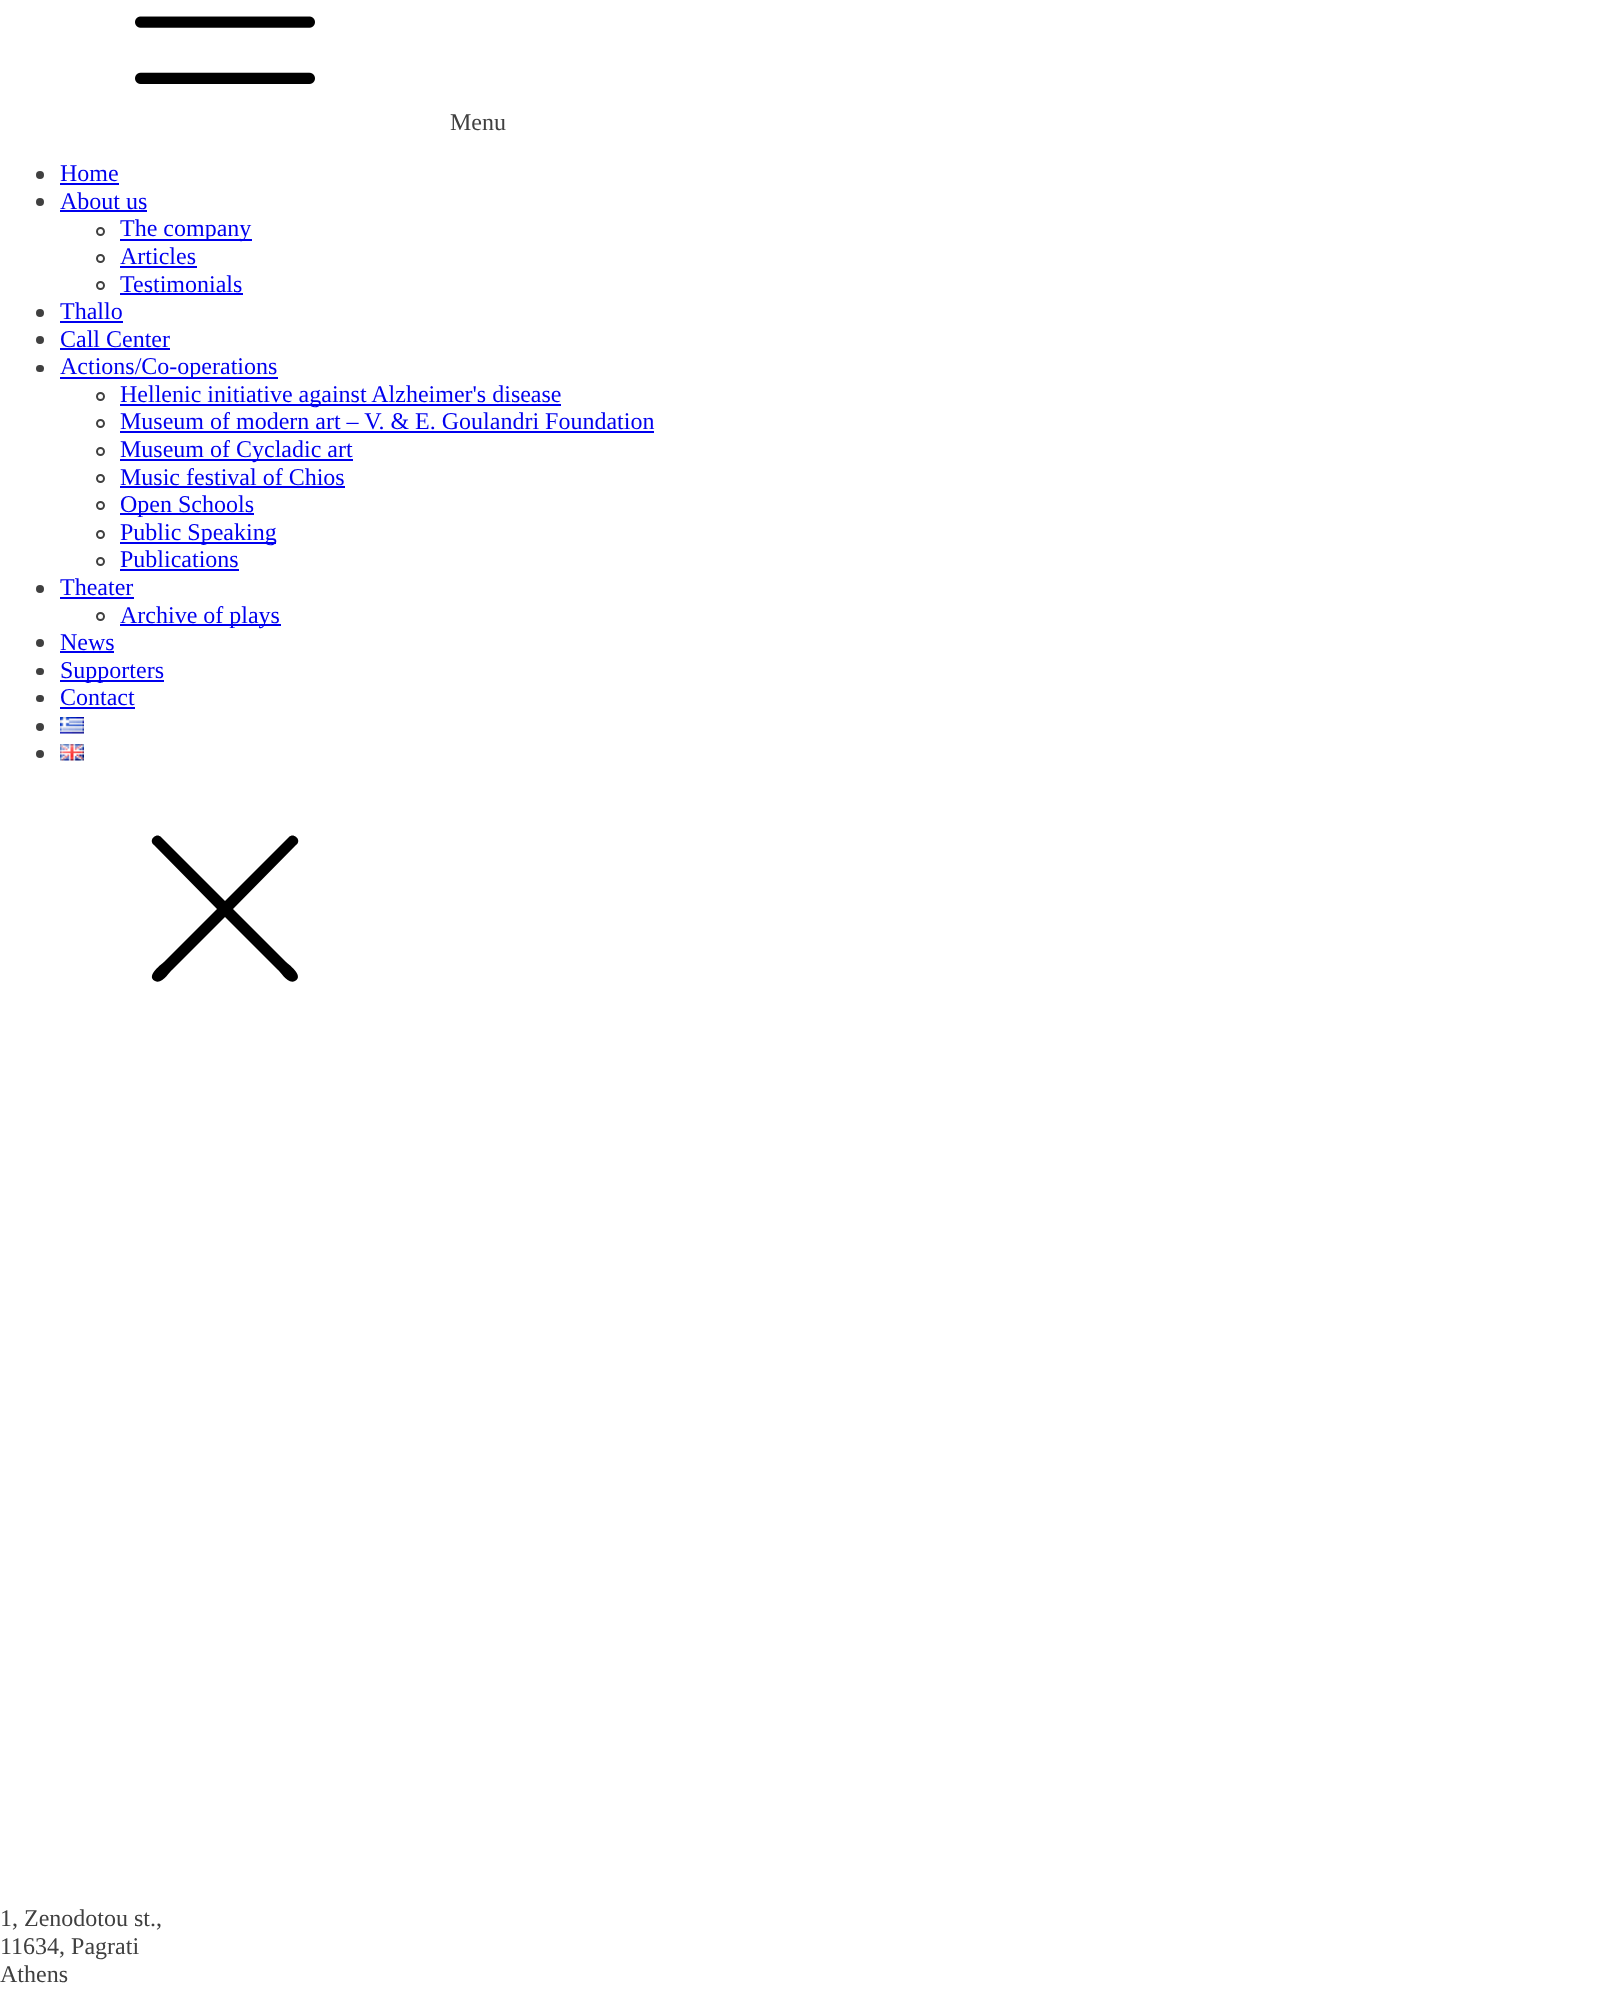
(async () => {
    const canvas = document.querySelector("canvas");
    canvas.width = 1599;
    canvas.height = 2002;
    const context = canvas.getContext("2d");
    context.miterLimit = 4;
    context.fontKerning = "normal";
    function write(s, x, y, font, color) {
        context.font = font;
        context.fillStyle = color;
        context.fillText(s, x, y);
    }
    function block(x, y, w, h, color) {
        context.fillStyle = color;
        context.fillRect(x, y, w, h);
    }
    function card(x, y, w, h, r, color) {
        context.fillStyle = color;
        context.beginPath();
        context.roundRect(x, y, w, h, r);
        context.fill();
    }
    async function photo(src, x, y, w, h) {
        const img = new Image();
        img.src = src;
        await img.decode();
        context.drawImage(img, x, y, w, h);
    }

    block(0, 0, 1599, 2002, "rgb(255, 255, 255)");
    await photo("media/1.png", 135, 16, 180, 68);
    write("Menu", 450, 130, "24px Liberation Serif", "rgb(64, 64, 64)");
    context.beginPath();
    context.arc(40, 175, 4, 0, Math.PI * 2);
    context.fill();
    write("Home", 60, 181, "24px Liberation Serif", "rgb(0, 0, 238)");
    block(60, 183, 59, 2, "rgb(0, 0, 238)");
    context.fillStyle = "rgb(64, 64, 64)";
    context.beginPath();
    context.arc(40, 202, 4, 0, Math.PI * 2);
    context.fill();
    write("About us", 60, 209, "24px Liberation Serif", "rgb(0, 0, 238)");
    block(60, 210, 87, 2, "rgb(0, 0, 238)");
    context.beginPath();
    context.arc(100.5, 231.5, 3.5, 0, Math.PI * 2);
    context.strokeStyle = "rgb(64, 64, 64)";
    context.lineWidth = 2;
    context.stroke();
    block(120, 239, 132, 2, "rgb(0, 0, 238)");
    write("The company", 120, 236, "24px Liberation Serif", "rgb(0, 0, 238)");
    context.beginPath();
    context.arc(100.5, 258.5, 3.5, 0, Math.PI * 2);
    context.stroke();
    write("Articles", 120, 264, "24px Liberation Serif", "rgb(0, 0, 238)");
    block(120, 266, 77, 2, "rgb(0, 0, 238)");
    context.beginPath();
    context.arc(100.5, 285.5, 3.5, 0, Math.PI * 2);
    context.stroke();
    write("Testimonials", 120, 292, "24px Liberation Serif", "rgb(0, 0, 238)");
    block(120, 293, 123, 2, "rgb(0, 0, 238)");
    context.fillStyle = "rgb(64, 64, 64)";
    context.beginPath();
    context.arc(40, 313, 4, 0, Math.PI * 2);
    context.fill();
    write("Thallo", 60, 319, "24px Liberation Serif", "rgb(0, 0, 238)");
    block(60, 321, 63, 2, "rgb(0, 0, 238)");
    context.fillStyle = "rgb(64, 64, 64)";
    context.beginPath();
    context.arc(40, 340, 4, 0, Math.PI * 2);
    context.fill();
    write("Call Center", 60, 347, "24px Liberation Serif", "rgb(0, 0, 238)");
    block(60, 348, 110, 2, "rgb(0, 0, 238)");
    card(36, 365, 8, 7, 3.5, "rgb(64, 64, 64)");
    block(60, 377, 218, 2, "rgb(0, 0, 238)");
    write("Actions/Co-operations", 60, 374, "24px Liberation Serif", "rgb(0, 0, 238)");
    context.beginPath();
    context.arc(100.5, 396.5, 3.5, 0, Math.PI * 2);
    context.stroke();
    block(120, 404, 441, 2, "rgb(0, 0, 238)");
    write("Hellenic initiative against Alzheimer's disease", 120, 402, "24px Liberation Serif", "rgb(0, 0, 238)");
    context.beginPath();
    context.arc(100.5, 423.5, 3.5, 0, Math.PI * 2);
    context.stroke();
    write("Museum of modern art – V. & E. Goulandri Foundation", 120, 429, "24px Liberation Serif", "rgb(0, 0, 238)");
    block(120, 431, 534, 2, "rgb(0, 0, 238)");
    context.beginPath();
    context.arc(100.5, 451.5, 3.5, 0, Math.PI * 2);
    context.stroke();
    block(120, 459, 233, 2, "rgb(0, 0, 238)");
    write("Museum of Cycladic art", 120, 457, "24px Liberation Serif", "rgb(0, 0, 238)");
    context.beginPath();
    context.arc(100.5, 478.5, 3.5, 0, Math.PI * 2);
    context.stroke();
    write("Music festival of Chios", 120, 485, "24px Liberation Serif", "rgb(0, 0, 238)");
    block(120, 486, 225, 2, "rgb(0, 0, 238)");
    context.beginPath();
    context.arc(100.5, 505.5, 3.5, 0, Math.PI * 2);
    context.stroke();
    block(120, 513, 134, 2, "rgb(0, 0, 238)");
    write("Open Schools", 120, 512, "24px Liberation Serif", "rgb(0, 0, 238)");
    context.beginPath();
    context.arc(100.5, 534.5, 3.5, 0, Math.PI * 2);
    context.stroke();
    block(120, 542, 156, 2, "rgb(0, 0, 238)");
    write("Public Speaking", 120, 540, "24px Liberation Serif", "rgb(0, 0, 238)");
    context.beginPath();
    context.arc(100.5, 561.5, 3.5, 0, Math.PI * 2);
    context.stroke();
    write("Publications", 120, 567, "24px Liberation Serif", "rgb(0, 0, 238)");
    block(120, 569, 119, 2, "rgb(0, 0, 238)");
    context.fillStyle = "rgb(64, 64, 64)";
    context.beginPath();
    context.arc(40, 589, 4, 0, Math.PI * 2);
    context.fill();
    write("Theater", 60, 595, "24px Liberation Serif", "rgb(0, 0, 238)");
    block(60, 597, 74, 2, "rgb(0, 0, 238)");
    context.beginPath();
    context.arc(100.5, 616.5, 3.5, 0, Math.PI * 2);
    context.stroke();
    block(120, 624, 161, 2, "rgb(0, 0, 238)");
    write("Archive of plays", 120, 623, "24px Liberation Serif", "rgb(0, 0, 238)");
    context.fillStyle = "rgb(64, 64, 64)";
    context.beginPath();
    context.arc(40, 643, 4, 0, Math.PI * 2);
    context.fill();
    write("News", 60, 650, "24px Liberation Serif", "rgb(0, 0, 238)");
    block(60, 651, 54, 2, "rgb(0, 0, 238)");
    card(36, 668, 8, 7, 3.5, "rgb(64, 64, 64)");
    block(60, 680, 104, 2, "rgb(0, 0, 238)");
    write("Supporters", 60, 678, "24px Liberation Serif", "rgb(0, 0, 238)");
    card(36, 695, 8, 7, 3.5, "rgb(64, 64, 64)");
    write("Contact", 60, 705, "24px Liberation Serif", "rgb(0, 0, 238)");
    block(60, 707, 75, 2, "rgb(0, 0, 238)");
    context.fillStyle = "rgb(64, 64, 64)";
    context.beginPath();
    context.arc(40, 727, 4, 0, Math.PI * 2);
    context.fill();
    await photo("media/2.png", 60, 717, 24, 17);
    context.beginPath();
    context.arc(40, 754, 4, 0, Math.PI * 2);
    context.fill();
    await photo("media/3.png", 60, 744, 24, 17);
    context.fillStyle = "rgb(0, 0, 0)";
    context.beginPath();
    context.moveTo(233, 909);
    context.lineTo(296, 845);
    context.bezierCurveTo(299, 843, 299, 839, 296, 837);
    context.bezierCurveTo(294, 835, 291, 835, 289, 837);
    context.lineTo(225, 901);
    context.lineTo(161, 837);
    context.bezierCurveTo(159, 835, 156, 835, 154, 837);
    context.bezierCurveTo(151, 839, 151, 843, 154, 845);
    context.lineTo(217, 909);
    context.lineTo(164, 962);
    context.bezierCurveTo(163, 963, 145, 976, 155, 981);
    context.bezierCurveTo(162, 985, 170, 971, 172, 970);
    context.lineTo(225, 917);
    context.lineTo(278, 970);
    context.bezierCurveTo(280, 971, 288, 985, 295, 981);
    context.bezierCurveTo(305, 976, 287, 963, 286, 962);
    context.closePath();
    context.fill();
    write("1, Zenodotou st.,", 0, 1926, "24px Liberation Serif", "rgb(64, 64, 64)");
    write("11634, Pagrati", 0, 1954, "24px Liberation Serif", "rgb(64, 64, 64)");
    write("Athens", 0, 1982, "24px Liberation Serif", "rgb(64, 64, 64)");
})();
